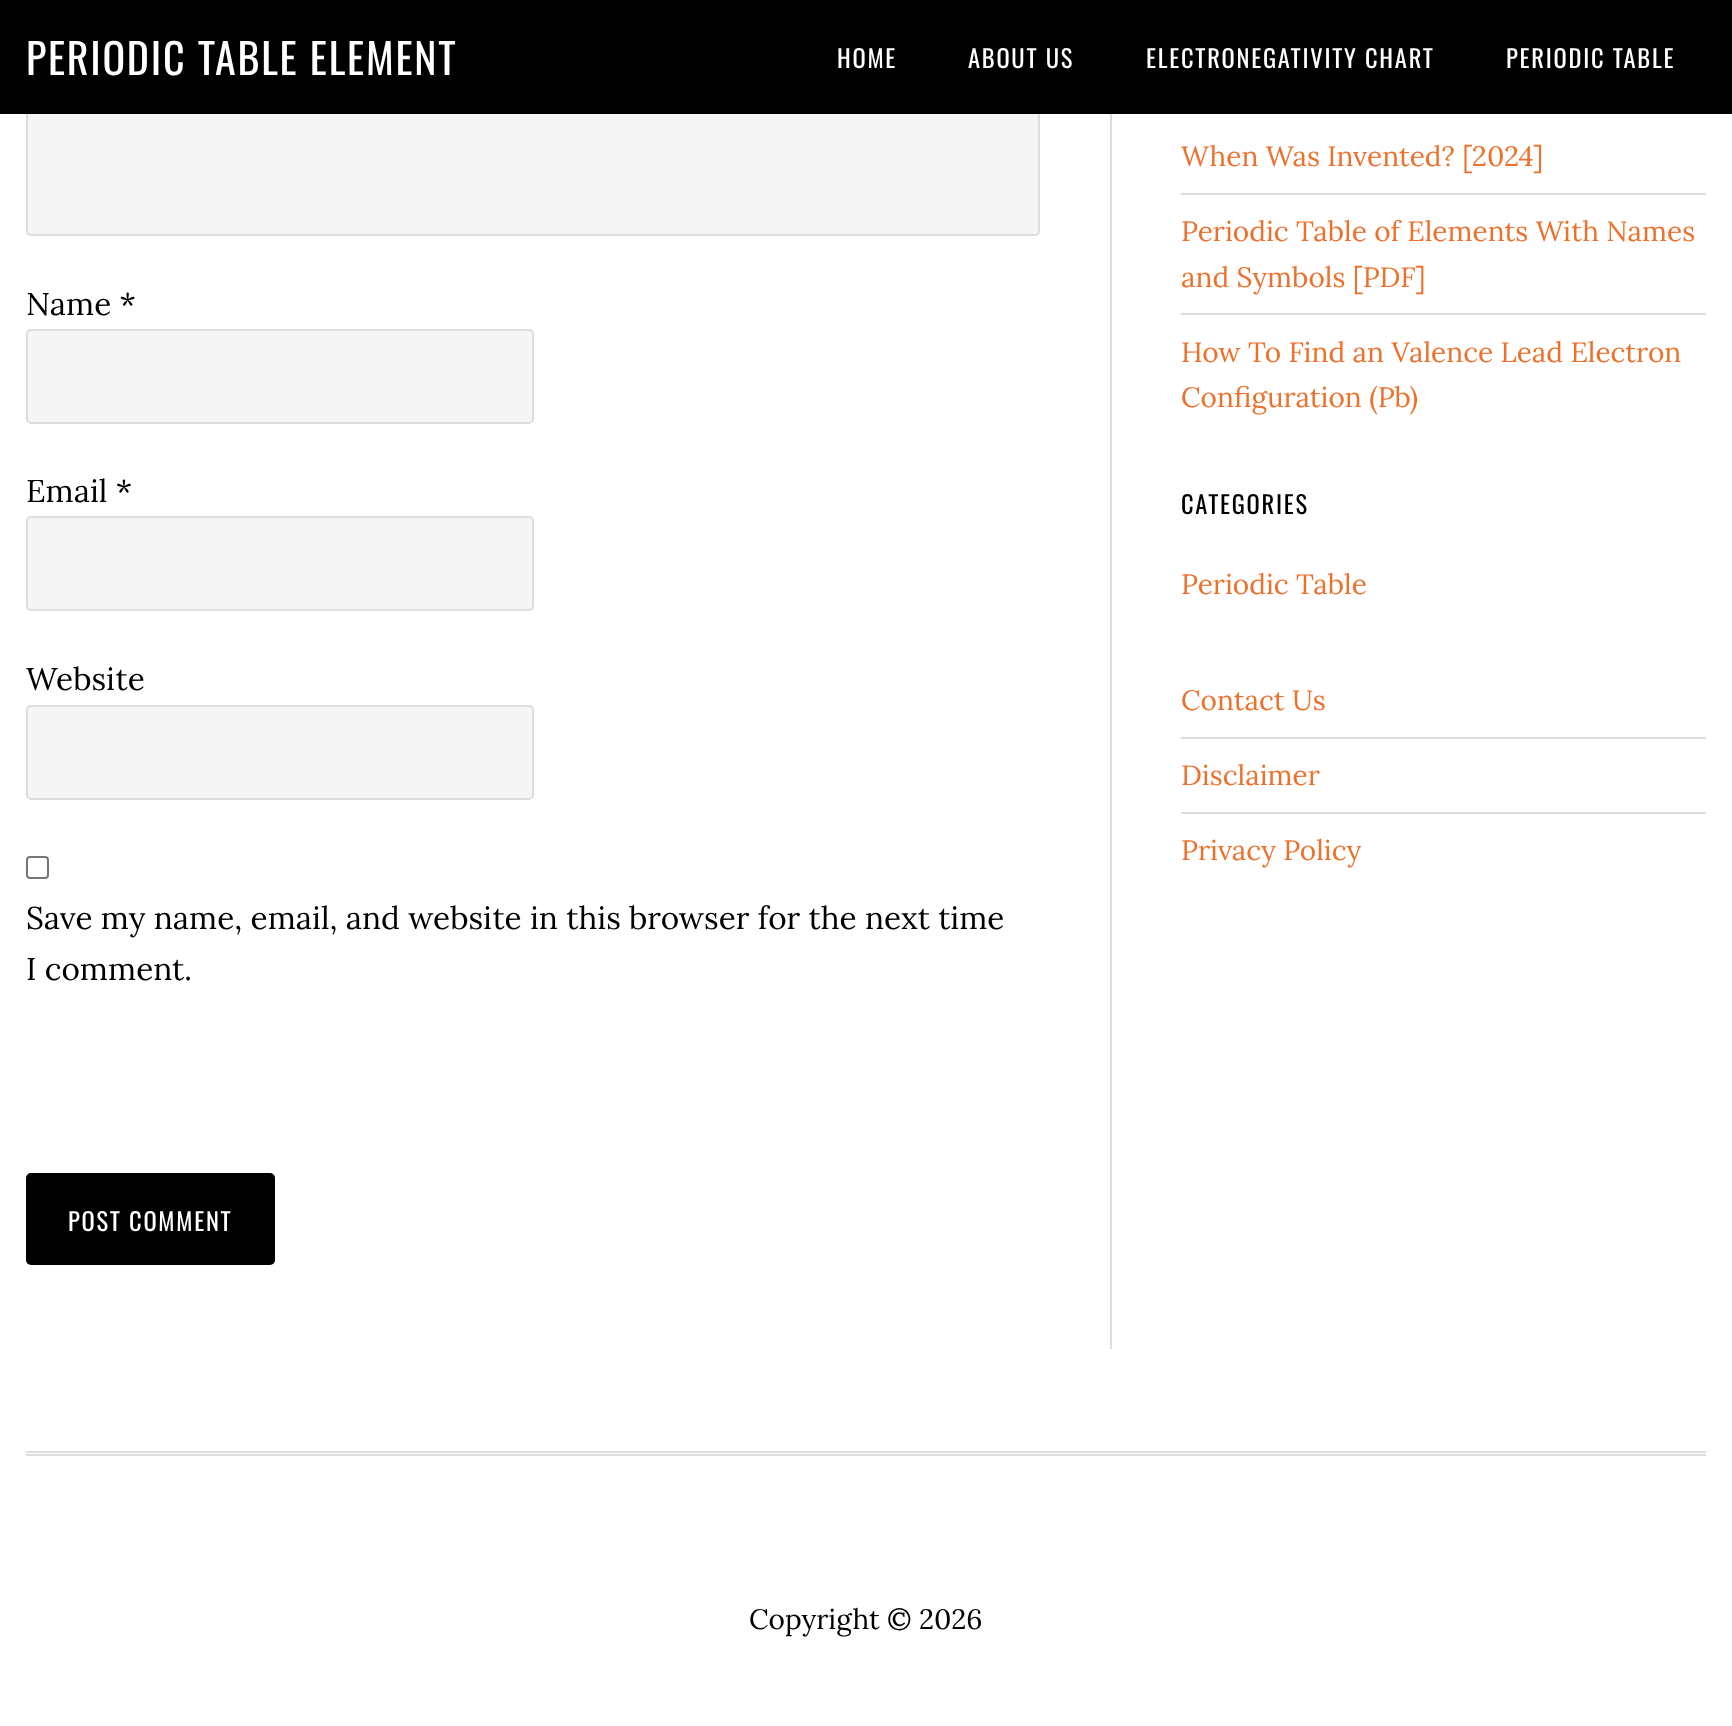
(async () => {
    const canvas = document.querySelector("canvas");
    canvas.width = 1732;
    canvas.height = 1726;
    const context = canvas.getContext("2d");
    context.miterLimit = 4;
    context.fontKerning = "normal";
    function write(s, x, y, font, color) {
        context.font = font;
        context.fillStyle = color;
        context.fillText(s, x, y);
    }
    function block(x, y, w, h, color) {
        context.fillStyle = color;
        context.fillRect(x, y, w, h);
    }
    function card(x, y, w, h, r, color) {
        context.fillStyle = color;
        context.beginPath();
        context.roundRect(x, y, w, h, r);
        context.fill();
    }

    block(0, 0, 1732, 1726, "rgb(255, 255, 255)");
    context.fillStyle = "rgb(245, 245, 245)";
    context.beginPath();
    context.roundRect(27, -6, 1012, 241, 4);
    context.fill();
    context.strokeStyle = "rgb(221, 221, 221)";
    context.lineWidth = 2;
    context.stroke();
    block(0, 0, 1732, 114, "rgb(0, 0, 0)");
    context.letterSpacing = "1.75px";
    write("PERIODIC TABLE ELEMENT", 26, 75, "42px Oswald", "rgb(255, 255, 255)");
    write("HOME", 837, 68, "24.5px Oswald", "rgb(255, 255, 255)");
    write("ABOUT US", 968, 68, "24.5px Oswald", "rgb(255, 255, 255)");
    write("ELECTRONEGATIVITY CHART", 1146, 68, "24.5px Oswald", "rgb(255, 255, 255)");
    write("PERIODIC TABLE", 1506, 68, "24.5px Oswald", "rgb(255, 255, 255)");
    block(26, 1451, 1680, 2, "rgb(221, 221, 221)");
    block(26, 1454, 1680, 2, "rgb(221, 221, 221)");
    block(1110, 114, 2, 1235, "rgb(221, 221, 221)");
    context.letterSpacing = "0px";
    write("Name *", 26, 315, "31.5px Lora", "rgb(0, 0, 0)");
    context.fillStyle = "rgb(245, 245, 245)";
    context.beginPath();
    context.roundRect(27, 330, 506, 93, 4);
    context.fill();
    context.stroke();
    write("Email *", 26, 502, "31.5px Lora", "rgb(0, 0, 0)");
    context.fillStyle = "rgb(245, 245, 245)";
    context.beginPath();
    context.roundRect(27, 517, 506, 93, 4);
    context.fill();
    context.stroke();
    write("Website", 26, 690, "31.5px Lora", "rgb(0, 0, 0)");
    context.fillStyle = "rgb(245, 245, 245)";
    context.beginPath();
    context.roundRect(27, 706, 506, 93, 4);
    context.fill();
    context.stroke();
    context.beginPath();
    context.roundRect(27, 857, 21, 21, 3);
    context.strokeStyle = "rgb(118, 118, 118)";
    context.stroke();
    write("Save my name, email, and website in this browser for the next time", 26, 929, "31.5px Lora", "rgb(0, 0, 0)");
    write("I comment.", 26, 980, "31.5px Lora", "rgb(0, 0, 0)");
    card(26, 1173, 249, 92, 5, "rgb(0, 0, 0)");
    context.letterSpacing = "1.75px";
    write("POST COMMENT", 68, 1231, "24.5px Oswald", "rgb(255, 255, 255)");
    block(1181, 193, 525, 2, "rgb(221, 221, 221)");
    context.letterSpacing = "0px";
    write("When Was Invented? [2024]", 1181, 166, "28px Lora", "rgb(237, 112, 43)");
    block(1181, 313, 525, 2, "rgb(221, 221, 221)");
    write("Periodic Table of Elements With Names", 1181, 241, "28px Lora", "rgb(237, 112, 43)");
    write("and Symbols [PDF]", 1181, 287, "28px Lora", "rgb(237, 112, 43)");
    write("How To Find an Valence Lead Electron", 1181, 362, "28px Lora", "rgb(237, 112, 43)");
    write("Configuration (Pb)", 1181, 407, "28px Lora", "rgb(237, 112, 43)");
    context.letterSpacing = "1.75px";
    write("CATEGORIES", 1181, 514, "24.5px Oswald", "rgb(0, 0, 0)");
    context.letterSpacing = "0px";
    write("Periodic Table", 1181, 594, "28px Lora", "rgb(237, 112, 43)");
    block(1181, 737, 525, 2, "rgb(221, 221, 221)");
    write("Contact Us", 1181, 710, "28px Lora", "rgb(237, 112, 43)");
    block(1181, 812, 525, 2, "rgb(221, 221, 221)");
    write("Disclaimer", 1181, 785, "28px Lora", "rgb(237, 112, 43)");
    write("Privacy Policy", 1181, 860, "28px Lora", "rgb(237, 112, 43)");
    write("Copyright © 2026", 749, 1629, "28px Lora", "rgb(0, 0, 0)");
})();
